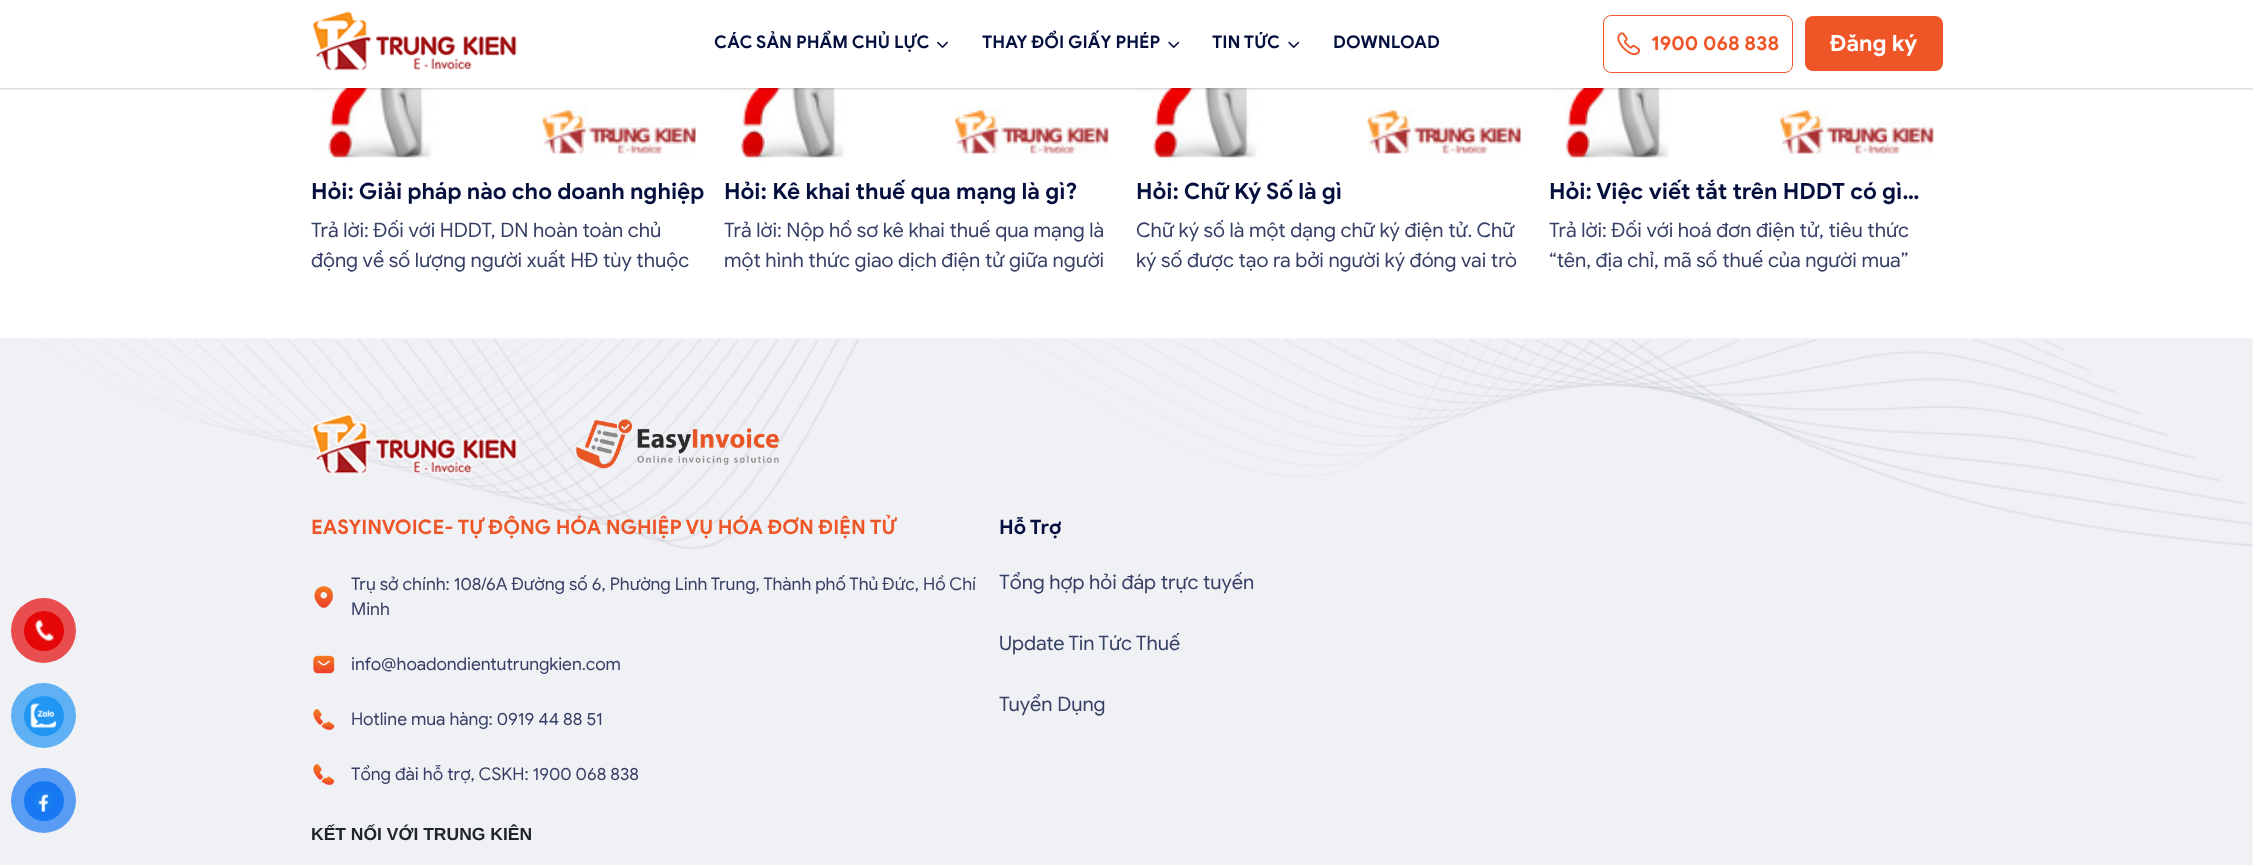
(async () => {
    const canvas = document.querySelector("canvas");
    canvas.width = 2253;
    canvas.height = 865;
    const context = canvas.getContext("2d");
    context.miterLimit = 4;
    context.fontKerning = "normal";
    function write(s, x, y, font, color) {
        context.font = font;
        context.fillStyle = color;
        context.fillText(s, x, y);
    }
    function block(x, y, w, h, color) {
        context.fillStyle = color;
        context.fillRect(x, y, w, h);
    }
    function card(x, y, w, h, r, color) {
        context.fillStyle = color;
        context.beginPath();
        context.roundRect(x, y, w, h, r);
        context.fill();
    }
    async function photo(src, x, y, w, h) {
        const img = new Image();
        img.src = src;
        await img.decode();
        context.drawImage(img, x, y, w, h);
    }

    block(0, 0, 2253, 865, "rgb(255, 255, 255)");
    await photo("media/5.png", 311, 88, 386, 73);
    await photo("media/6.png", 724, 88, 385, 73);
    await photo("media/5.png", 1136, 88, 386, 73);
    await photo("media/6.png", 1549, 88, 385, 73);
    context.fillStyle = "rgba(0, 0, 0, 0.2)";
    context.filter = "blur(1px)";
    context.beginPath();
    context.rect(0, 1, 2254, 88);
    context.fill();
    context.filter = "none";
    block(0, 0, 2253, 88, "rgb(255, 255, 255)");
    await photo("media/1.png", 312, 11, 205, 60);
    write("CÁC SẢN PHẨM CHỦ LỰC", 714, 48, "bold 17.5px Google Sans", "rgb(4, 15, 62)");
    await photo("media/2.png", 937, 41, 11, 7);
    write("THAY ĐỔI GIẤY PHÉP", 982, 48, "bold 17.5px Google Sans", "rgb(4, 15, 62)");
    await photo("media/3.png", 1168, 41, 12, 7);
    write("TIN TỨC", 1212, 48, "bold 17.5px Google Sans", "rgb(4, 15, 62)");
    await photo("media/3.png", 1288, 41, 12, 7);
    write("DOWNLOAD", 1333, 48, "bold 17.5px Google Sans", "rgb(4, 15, 62)");
    context.beginPath();
    context.roundRect(1603.5, 15.5, 189, 57, 7.5);
    context.strokeStyle = "rgb(239, 86, 39)";
    context.stroke();
    await photo("media/4.png", 1617, 32, 24, 24);
    write("1900 068 838", 1651, 50, "bold 20px Google Sans", "rgb(239, 86, 39)");
    card(1805, 16, 138, 55, 8, "rgb(239, 86, 39)");
    write("Đăng ký", 1830, 51, "bold 22.5px Google Sans", "rgb(255, 255, 255)");
    write("Hỏi: Giải pháp nào cho doanh nghiệp", 311, 199, "bold 22.5px Google Sans", "rgb(4, 15, 62)");
    write("Trả lời: Đối với HDDT, DN hoàn toàn chủ", 311, 237, "20px Google Sans", "rgb(54, 63, 101)");
    write("động về số lượng người xuất HĐ tùy thuộc", 311, 267, "20px Google Sans", "rgb(54, 63, 101)");
    write("Hỏi: Kê khai thuế qua mạng là gì?", 724, 199, "bold 22.5px Google Sans", "rgb(4, 15, 62)");
    write("Trả lời: Nộp hồ sơ kê khai thuế qua mạng là", 724, 237, "20px Google Sans", "rgb(54, 63, 101)");
    write("một hình thức giao dịch điện tử giữa người", 724, 267, "20px Google Sans", "rgb(54, 63, 101)");
    write("Hỏi: Chữ Ký Số là gì", 1136, 199, "bold 22.5px Google Sans", "rgb(4, 15, 62)");
    write("Chữ ký số là một dạng chữ ký điện tử. Chữ", 1136, 237, "20px Google Sans", "rgb(54, 63, 101)");
    write("ký số được tạo ra bởi người ký đóng vai trò", 1136, 267, "20px Google Sans", "rgb(54, 63, 101)");
    write("Hỏi: Việc viết tắt trên HDDT có gì…", 1549, 199, "bold 22.5px Google Sans", "rgb(4, 15, 62)");
    write("Trả lời: Đối với hoá đơn điện tử, tiêu thức", 1549, 237, "20px Google Sans", "rgb(54, 63, 101)");
    write("“tên, địa chỉ, mã số thuế của người mua”", 1549, 267, "20px Google Sans", "rgb(54, 63, 101)");
    await photo("media/10.png", 0, 338, 2253, 527);
    context.fillStyle = "rgb(233, 78, 79)";
    context.beginPath();
    context.arc(43.5, 630.5, 32.5, 0, Math.PI * 2);
    context.fill();
    context.fillStyle = "rgb(230, 8, 8)";
    context.beginPath();
    context.arc(44, 631, 20, 0, Math.PI * 2);
    context.fill();
    await photo("media/7.png", 34, 619, 20, 23);
    context.fillStyle = "rgb(95, 177, 243)";
    context.beginPath();
    context.arc(43.5, 715.5, 32.5, 0, Math.PI * 2);
    context.fill();
    context.fillStyle = "rgb(33, 150, 243)";
    context.beginPath();
    context.arc(44, 716, 20, 0, Math.PI * 2);
    context.fill();
    await photo("media/8.png", 30, 703, 27, 25);
    context.fillStyle = "rgb(89, 156, 243)";
    context.beginPath();
    context.arc(43.5, 800.5, 32.5, 0, Math.PI * 2);
    context.fill();
    context.fillStyle = "rgb(24, 119, 242)";
    context.beginPath();
    context.arc(44, 801, 20, 0, Math.PI * 2);
    context.fill();
    await photo("media/9.png", 33, 790, 21, 22);
    await photo("media/11.png", 311, 413, 207, 62);
    await photo("media/12.png", 576, 419, 203, 50);
    write("EASYINVOICE- TỰ ĐỘNG HÓA NGHIỆP VỤ HÓA ĐƠN ĐIỆN TỬ", 311, 534, "bold 20px Google Sans", "rgb(239, 86, 39)");
    await photo("media/13.png", 314, 586, 19, 22);
    write("Trụ sở chính: 108/6A Đường số 6, Phường Linh Trung, Thành phố Thủ Đức, Hồ Chí", 351, 590, "17.5px Google Sans", "rgb(54, 63, 101)");
    write("Minh", 351, 615, "17.5px Google Sans", "rgb(54, 63, 101)");
    await photo("media/14.png", 313, 655, 22, 19);
    write("info@hoadondientutrungkien.com", 351, 670, "17.5px Google Sans", "rgb(54, 63, 101)");
    await photo("media/15.png", 313, 709, 22, 21);
    write("Hotline mua hàng: 0919 44 88 51", 351, 725, "17.5px Google Sans", "rgb(54, 63, 101)");
    await photo("media/15.png", 313, 764, 22, 21);
    write("Tổng đài hỗ trợ, CSKH: 1900 068 838", 351, 780, "17.5px Google Sans", "rgb(54, 63, 101)");
    write("KẾT NỐI VỚI TRUNG KIÊN", 311, 840, "bold 17.5px Liberation Sans", "rgb(33, 37, 41)");
    write("Hỗ Trợ", 999, 534, "bold 20px Google Sans", "rgb(4, 15, 62)");
    write("Tổng hợp hỏi đáp trực tuyến", 999, 589, "20px Google Sans", "rgb(54, 63, 101)");
    write("Update Tin Tức Thuế", 999, 650, "20px Google Sans", "rgb(54, 63, 101)");
    write("Tuyển Dụng", 999, 711, "20px Google Sans", "rgb(54, 63, 101)");
})();
